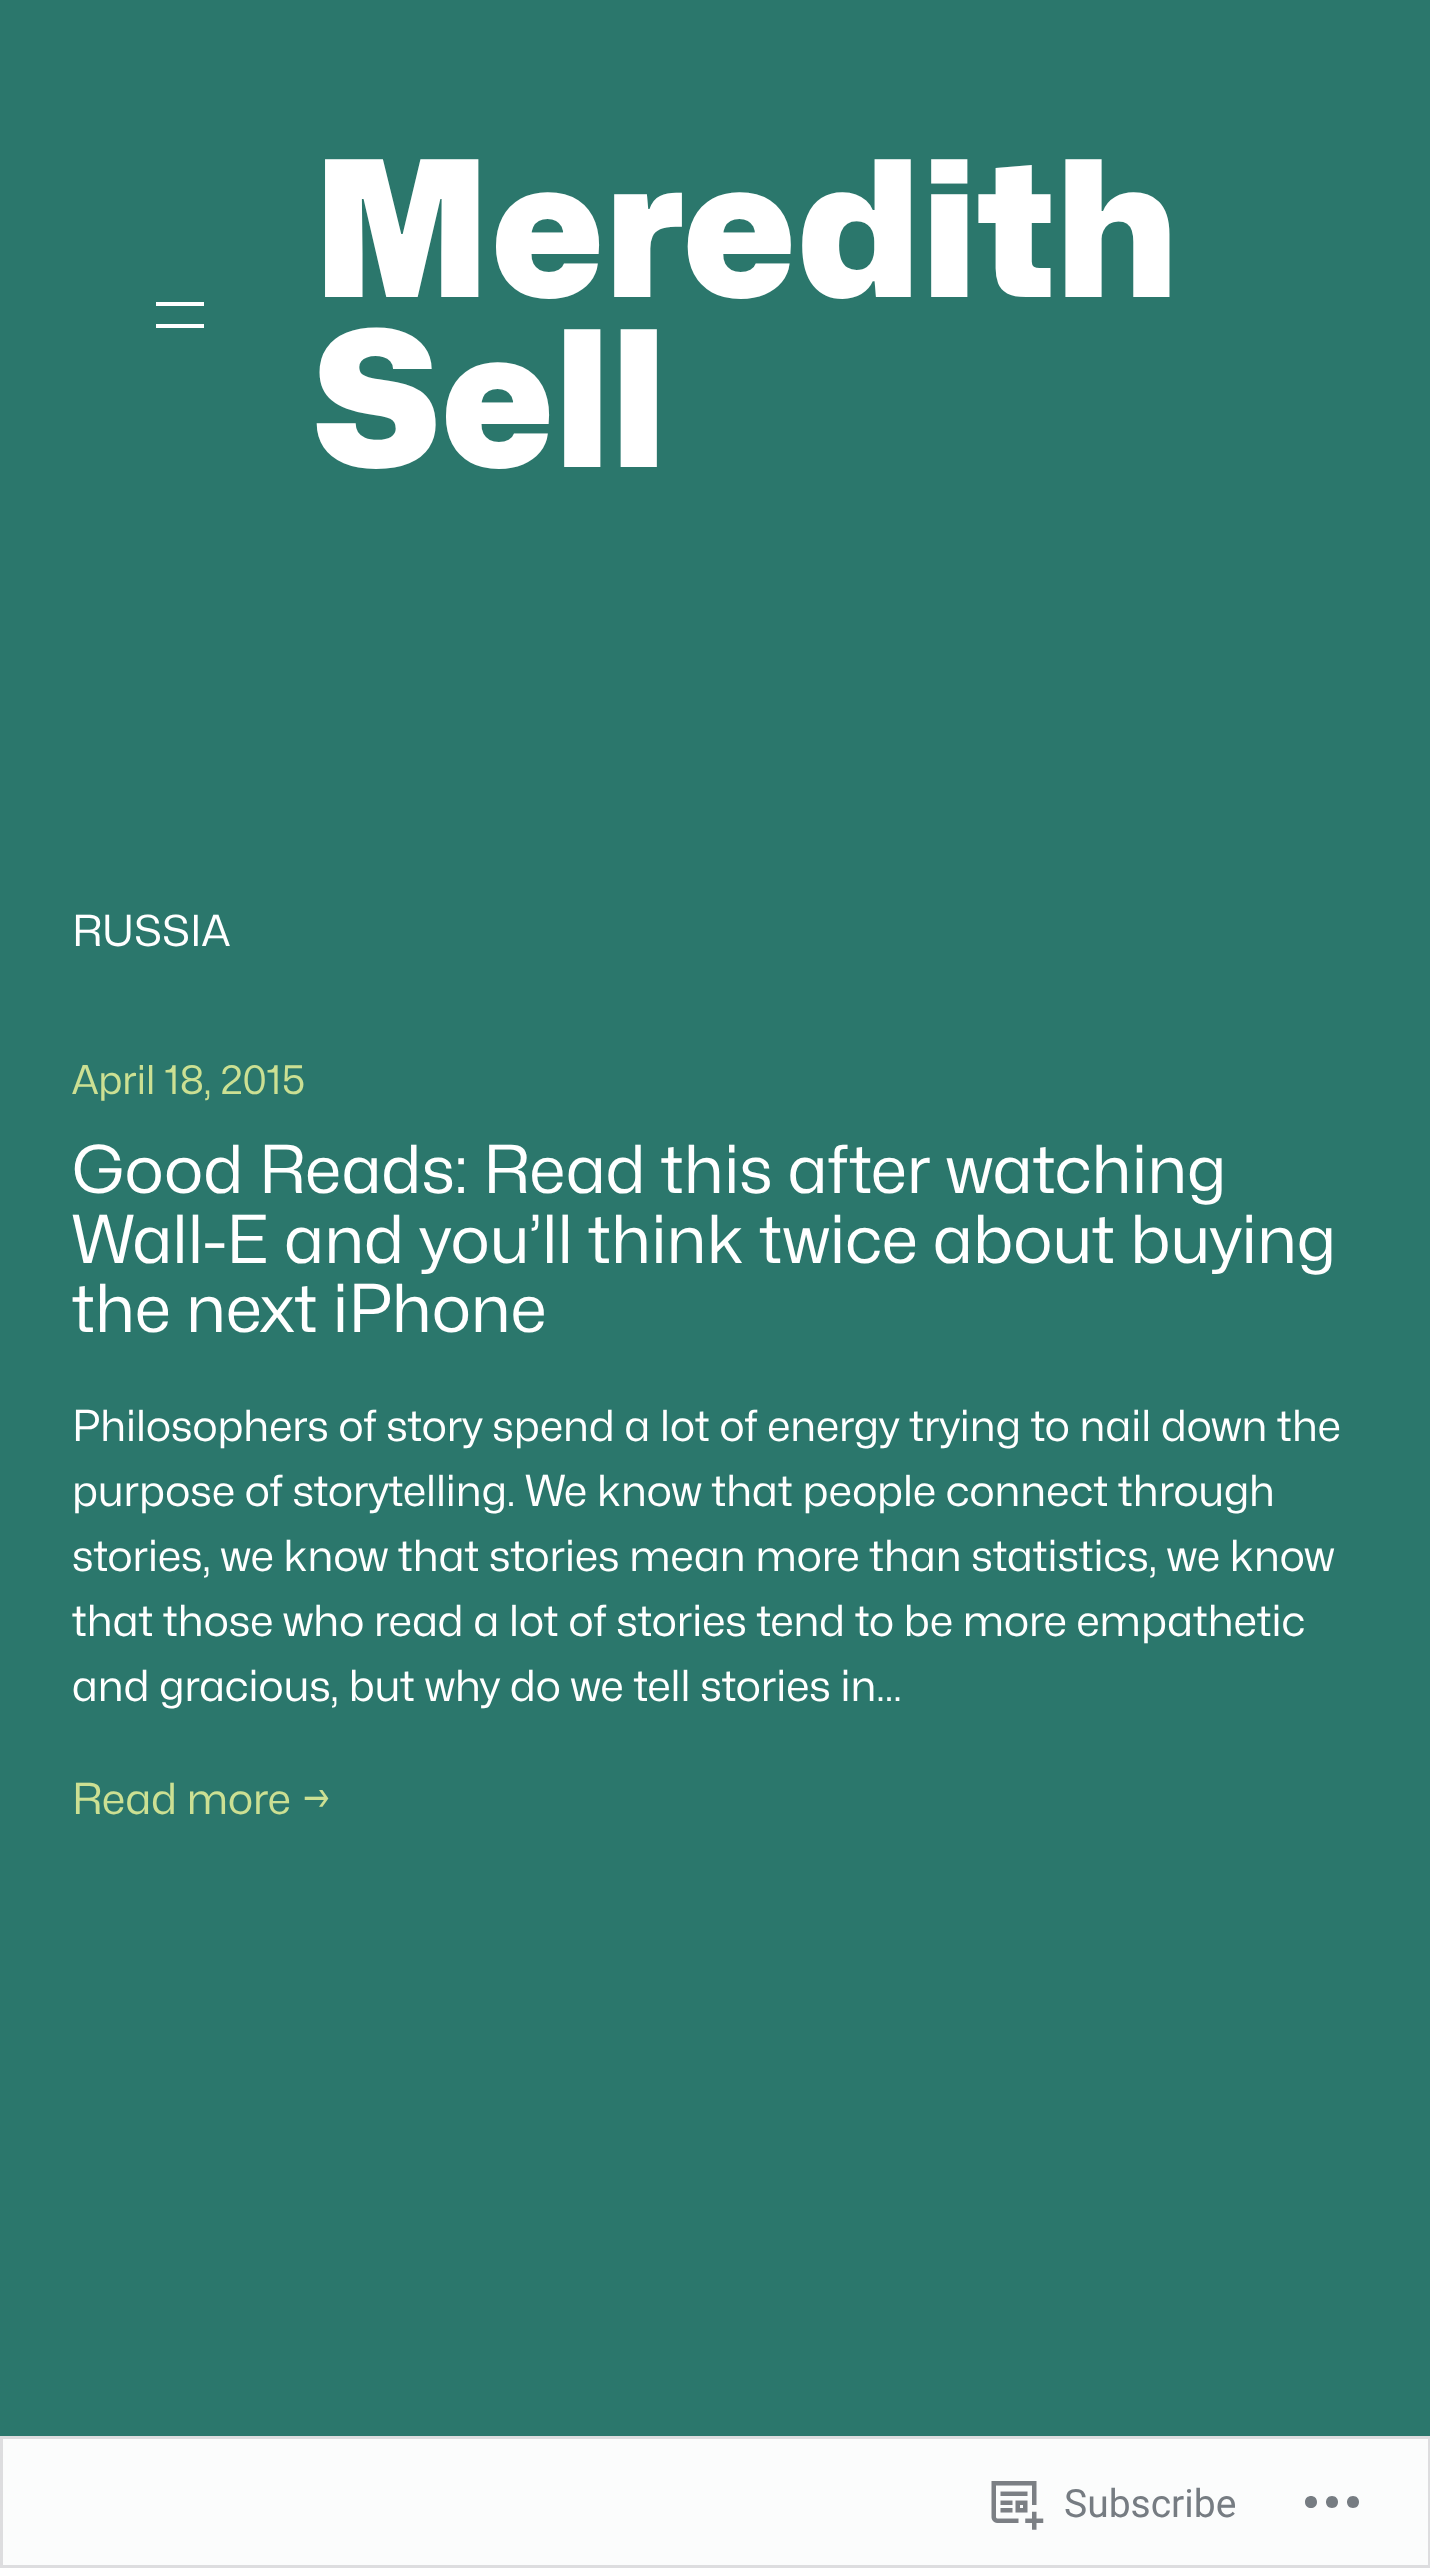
(async () => {
    const canvas = document.querySelector("canvas");
    canvas.width = 1430;
    canvas.height = 2568;
    const context = canvas.getContext("2d");
    context.miterLimit = 4;
    context.fontKerning = "normal";
    function write(s, x, y, font, color) {
        context.font = font;
        context.fillStyle = color;
        context.fillText(s, x, y);
    }
    function block(x, y, w, h, color) {
        context.fillStyle = color;
        context.fillRect(x, y, w, h);
    }
    async function photo(src, x, y, w, h) {
        const img = new Image();
        img.src = src;
        await img.decode();
        context.drawImage(img, x, y, w, h);
    }

    block(0, 0, 1430, 2568, "rgb(43, 119, 108)");
    block(156, 302, 48, 4, "rgb(255, 255, 255)");
    block(156, 324, 48, 4, "rgb(255, 255, 255)");
    write("Meredith", 312, 297, "900 189px Mona Sans", "rgb(255, 255, 255)");
    write("Sell", 312, 467, "900 189px Mona Sans", "rgb(255, 255, 255)");
    write("RUSSIA", 72, 946, "42.75px Mona Sans", "rgb(255, 255, 255)");
    write("April 18, 2015", 72, 1094, "39.75px Mona Sans", "rgb(204, 224, 147)");
    write("Good Reads: Read this after watching", 72, 1193, "66.3px Mona Sans", "rgb(255, 255, 255)");
    write("Wall-E and you’ll think twice about buying", 72, 1263, "66.3px Mona Sans", "rgb(255, 255, 255)");
    write("the next iPhone", 72, 1332, "66.3px Mona Sans", "rgb(255, 255, 255)");
    write("Philosophers of story spend a lot of energy trying to nail down the", 72, 1441, "42.75px Mona Sans", "rgb(255, 255, 255)");
    write("purpose of storytelling. We know that people connect through", 72, 1506, "42.75px Mona Sans", "rgb(255, 255, 255)");
    write("stories, we know that stories mean more than statistics, we know", 72, 1571, "42.75px Mona Sans", "rgb(255, 255, 255)");
    write("that those who read a lot of stories tend to be more empathetic", 72, 1636, "42.75px Mona Sans", "rgb(255, 255, 255)");
    write("and gracious, but why do we tell stories in…", 72, 1701, "42.75px Mona Sans", "rgb(255, 255, 255)");
    write("Read more →", 72, 1814, "42.75px Mona Sans", "rgb(204, 224, 147)");
    block(0, 2436, 1430, 132, "rgba(255, 255, 255, 0.98)");
    context.strokeStyle = "rgba(220, 220, 222, 0.98)";
    context.lineWidth = 3;
    context.strokeRect(1.5, 2437.5, 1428, 129);
    await photo("media/1.png", 991, 2481, 53, 49);
    write("Subscribe", 1064, 2517, "39px Roboto", "rgb(118, 124, 130)");
    context.beginPath();
    context.moveTo(1317, 2502);
    context.bezierCurveTo(1317, 2510, 1305, 2510, 1305, 2502);
    context.bezierCurveTo(1305, 2494, 1317, 2494, 1317, 2502);
    context.closePath();
    context.moveTo(1353, 2496);
    context.bezierCurveTo(1345, 2496, 1345, 2508, 1353, 2508);
    context.bezierCurveTo(1361, 2508, 1361, 2496, 1353, 2496);
    context.closePath();
    context.moveTo(1332, 2496);
    context.bezierCurveTo(1324, 2496, 1324, 2508, 1332, 2508);
    context.bezierCurveTo(1340, 2508, 1340, 2496, 1332, 2496);
    context.closePath();
    context.fill();
})();
